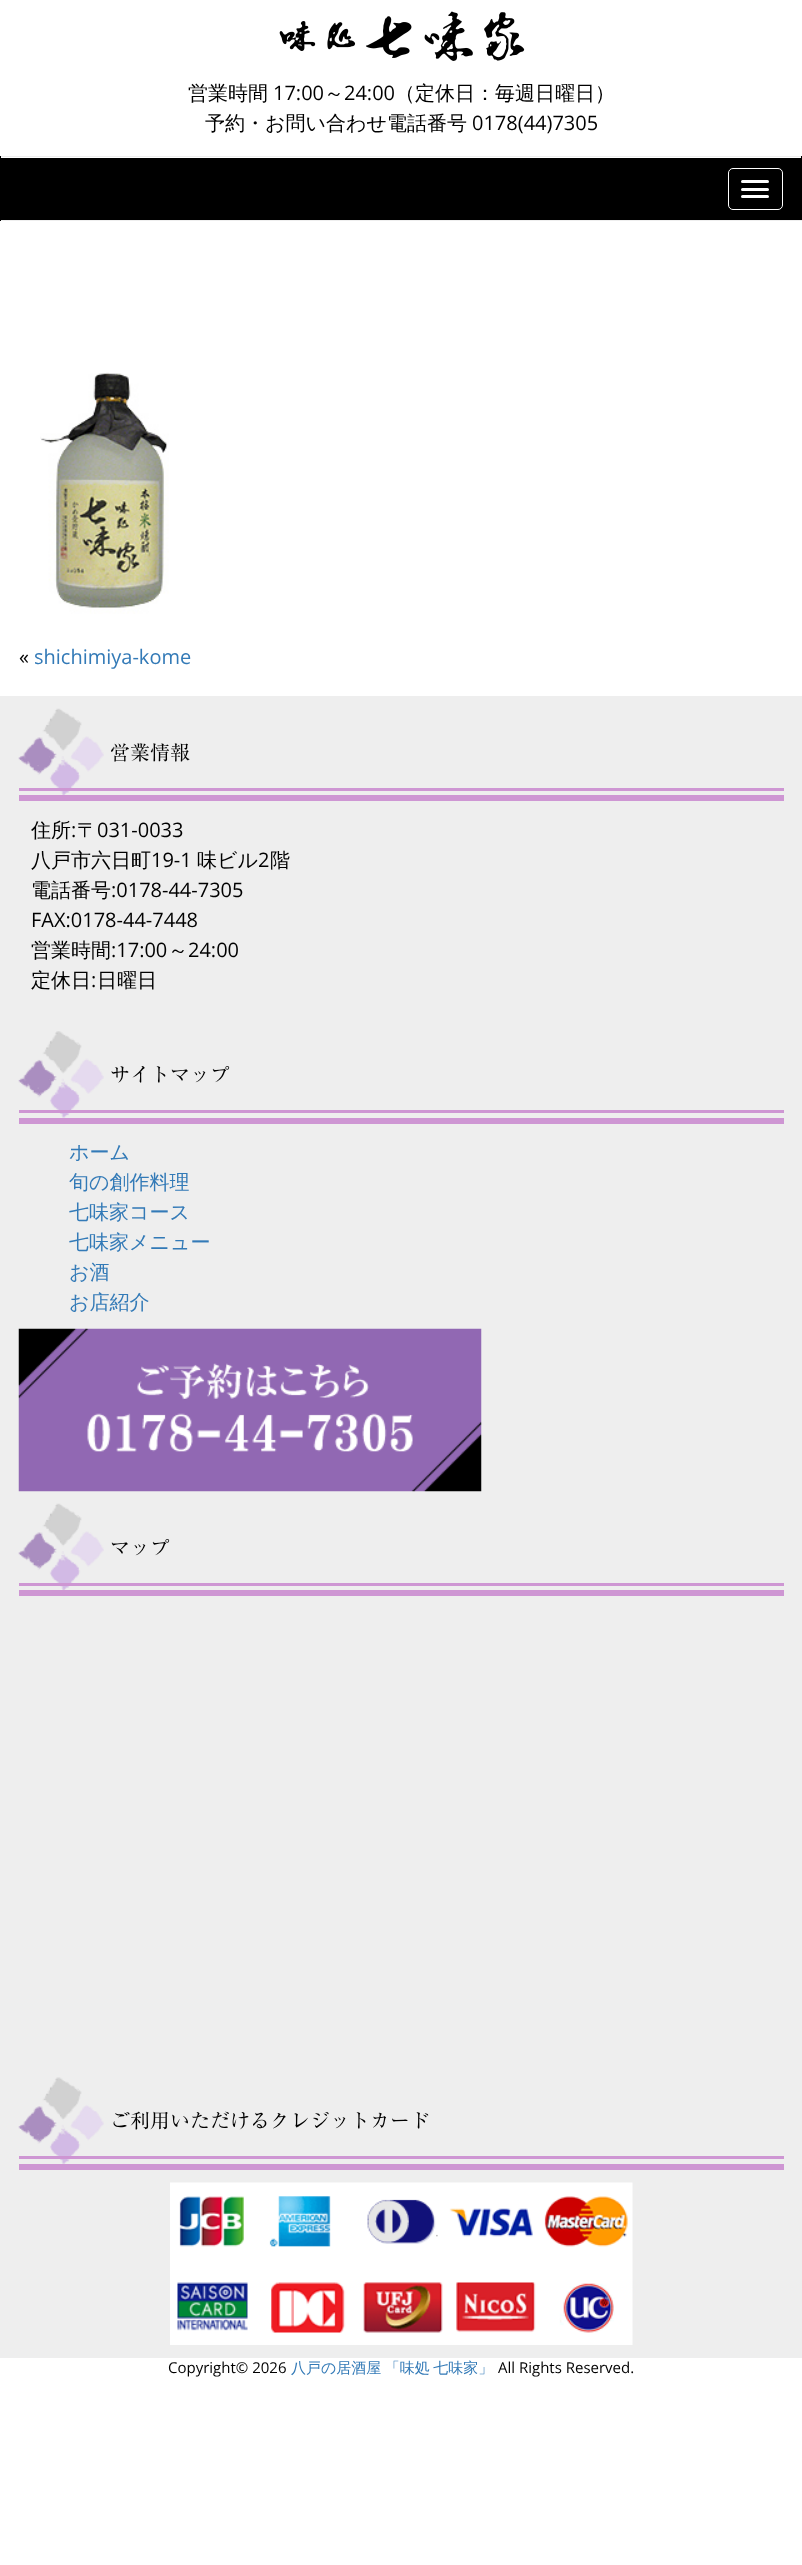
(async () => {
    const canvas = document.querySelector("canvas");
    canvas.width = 802;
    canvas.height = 2565;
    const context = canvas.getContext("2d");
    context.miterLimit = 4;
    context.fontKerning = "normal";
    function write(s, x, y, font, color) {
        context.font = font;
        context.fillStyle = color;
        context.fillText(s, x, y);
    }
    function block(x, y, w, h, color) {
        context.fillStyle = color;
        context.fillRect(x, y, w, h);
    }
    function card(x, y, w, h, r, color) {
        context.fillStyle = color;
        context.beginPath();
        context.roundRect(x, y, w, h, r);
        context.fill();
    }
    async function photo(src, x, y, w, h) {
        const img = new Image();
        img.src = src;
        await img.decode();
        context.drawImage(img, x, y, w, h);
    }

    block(0, 0, 802, 2565, "rgb(255, 255, 255)");
    await photo("media/1.png", 279, 11, 246, 50);
    write("営業時間", 188, 100, "500 20px WenQuanYi Zen Hei", "rgb(0, 0, 0)");
    write("17:00", 273, 100, "20px Open Sans", "rgb(0, 0, 0)");
    write("～", 324, 100, "500 20px WenQuanYi Zen Hei", "rgb(0, 0, 0)");
    write("24:00", 344, 100, "20px Open Sans", "rgb(0, 0, 0)");
    write("（定休日：毎週日曜日）", 395, 100, "500 20px WenQuanYi Zen Hei", "rgb(0, 0, 0)");
    write("予約・お問い合わせ電話番号", 205, 130, "500 20px WenQuanYi Zen Hei", "rgb(0, 0, 0)");
    write("0178(44)7305", 472, 130, "20px Open Sans", "rgb(0, 0, 0)");
    block(1, 158, 800, 62, "rgb(0, 0, 0)");
    block(0, 156, 802, 1, "rgb(238, 238, 238)");
    block(801, 156, 1, 65, "rgb(0, 0, 0)");
    block(0, 220, 802, 1, "rgb(238, 238, 238)");
    block(0, 156, 1, 65, "rgb(0, 0, 0)");
    context.beginPath();
    context.roundRect(728.5, 168.5, 54, 41, 4.5);
    context.strokeStyle = "rgb(255, 255, 255)";
    context.stroke();
    card(741, 180, 28, 3, 1.5, "rgb(255, 255, 255)");
    card(741, 188, 28, 3, 1.5, "rgb(255, 255, 255)");
    card(741, 195, 28, 3, 1.5, "rgb(255, 255, 255)");
    await photo("media/2.png", 40, 372, 129, 242);
    write("«", 19, 664, "20px Open Sans", "rgb(0, 0, 0)");
    write("shichimiya-kome", 34, 664, "20px Open Sans", "rgb(51, 122, 183)");
    block(0, 696, 802, 1662, "rgb(238, 238, 238)");
    block(19, 795, 765, 6, "rgb(206, 150, 211)");
    await photo("media/3.png", 18, 708, 86, 87);
    write("営業情報", 110, 760, "20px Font", "rgb(0, 0, 0)");
    block(19, 788, 765, 3, "rgb(206, 150, 211)");
    write("住所", 31, 837, "500 20px WenQuanYi Zen Hei", "rgb(0, 0, 0)");
    write(":", 71, 837, "20px Open Sans", "rgb(0, 0, 0)");
    write("〒", 77, 837, "500 20px WenQuanYi Zen Hei", "rgb(0, 0, 0)");
    write("031-0033", 97, 837, "20px Open Sans", "rgb(0, 0, 0)");
    write("八戸市六日町", 31, 867, "500 20px WenQuanYi Zen Hei", "rgb(0, 0, 0)");
    write("19-1", 151, 867, "20px Open Sans", "rgb(0, 0, 0)");
    write("味ビル", 197, 867, "500 20px WenQuanYi Zen Hei", "rgb(0, 0, 0)");
    write("2", 258, 867, "20px Open Sans", "rgb(0, 0, 0)");
    write("階", 270, 867, "500 20px WenQuanYi Zen Hei", "rgb(0, 0, 0)");
    write("電話番号", 31, 897, "500 20px WenQuanYi Zen Hei", "rgb(0, 0, 0)");
    write(":0178-44-7305", 111, 897, "20px Open Sans", "rgb(0, 0, 0)");
    write("FAX:0178-44-7448", 31, 927, "20px Open Sans", "rgb(0, 0, 0)");
    write("営業時間", 31, 957, "500 20px WenQuanYi Zen Hei", "rgb(0, 0, 0)");
    write(":17:00", 111, 957, "20px Open Sans", "rgb(0, 0, 0)");
    write("～", 168, 957, "500 20px WenQuanYi Zen Hei", "rgb(0, 0, 0)");
    write("24:00", 188, 957, "20px Open Sans", "rgb(0, 0, 0)");
    write("定休日", 31, 987, "500 20px WenQuanYi Zen Hei", "rgb(0, 0, 0)");
    write(":", 91, 987, "20px Open Sans", "rgb(0, 0, 0)");
    write("日曜日", 97, 987, "500 20px WenQuanYi Zen Hei", "rgb(0, 0, 0)");
    block(19, 1118, 765, 6, "rgb(206, 150, 211)");
    await photo("media/4.png", 18, 1031, 86, 87);
    write("サイトマップ", 110, 1082, "20px Font", "rgb(0, 0, 0)");
    block(19, 1110, 765, 3, "rgb(206, 150, 211)");
    write("ホーム", 69, 1159, "500 20px WenQuanYi Zen Hei", "rgb(51, 122, 183)");
    write("旬の創作料理", 69, 1189, "500 20px WenQuanYi Zen Hei", "rgb(51, 122, 183)");
    write("七味家コース", 69, 1219, "500 20px WenQuanYi Zen Hei", "rgb(51, 122, 183)");
    write("七味家メニュー", 69, 1249, "500 20px WenQuanYi Zen Hei", "rgb(51, 122, 183)");
    write("お酒", 69, 1279, "500 20px WenQuanYi Zen Hei", "rgb(51, 122, 183)");
    write("お店紹介", 69, 1309, "500 20px WenQuanYi Zen Hei", "rgb(51, 122, 183)");
    await photo("media/5.png", 18, 1328, 464, 164);
    block(19, 1590, 765, 6, "rgb(206, 150, 211)");
    await photo("media/3.png", 18, 1503, 86, 87);
    write("マップ", 110, 1555, "20px Font", "rgb(0, 0, 0)");
    block(19, 1583, 765, 3, "rgb(206, 150, 211)");
    block(19, 2164, 765, 6, "rgb(206, 150, 211)");
    await photo("media/6.png", 18, 2077, 86, 87);
    write("ご利用いただけるクレジットカード", 110, 2128, "20px Font", "rgb(0, 0, 0)");
    block(19, 2156, 765, 3, "rgb(206, 150, 211)");
    await photo("media/7.png", 170, 2182, 463, 163);
    write("Copyright© 2026", 168, 2373, "15px Open Sans", "rgb(0, 0, 0)");
    context.wordSpacing = "-1px";
    write("八戸の居酒屋 「味処 七味家」", 291, 2373, "500 15px WenQuanYi Zen Hei", "rgb(51, 122, 183)");
    context.wordSpacing = "0px";
    write("All Rights Reserved.", 498, 2373, "15px Open Sans", "rgb(0, 0, 0)");
})();
